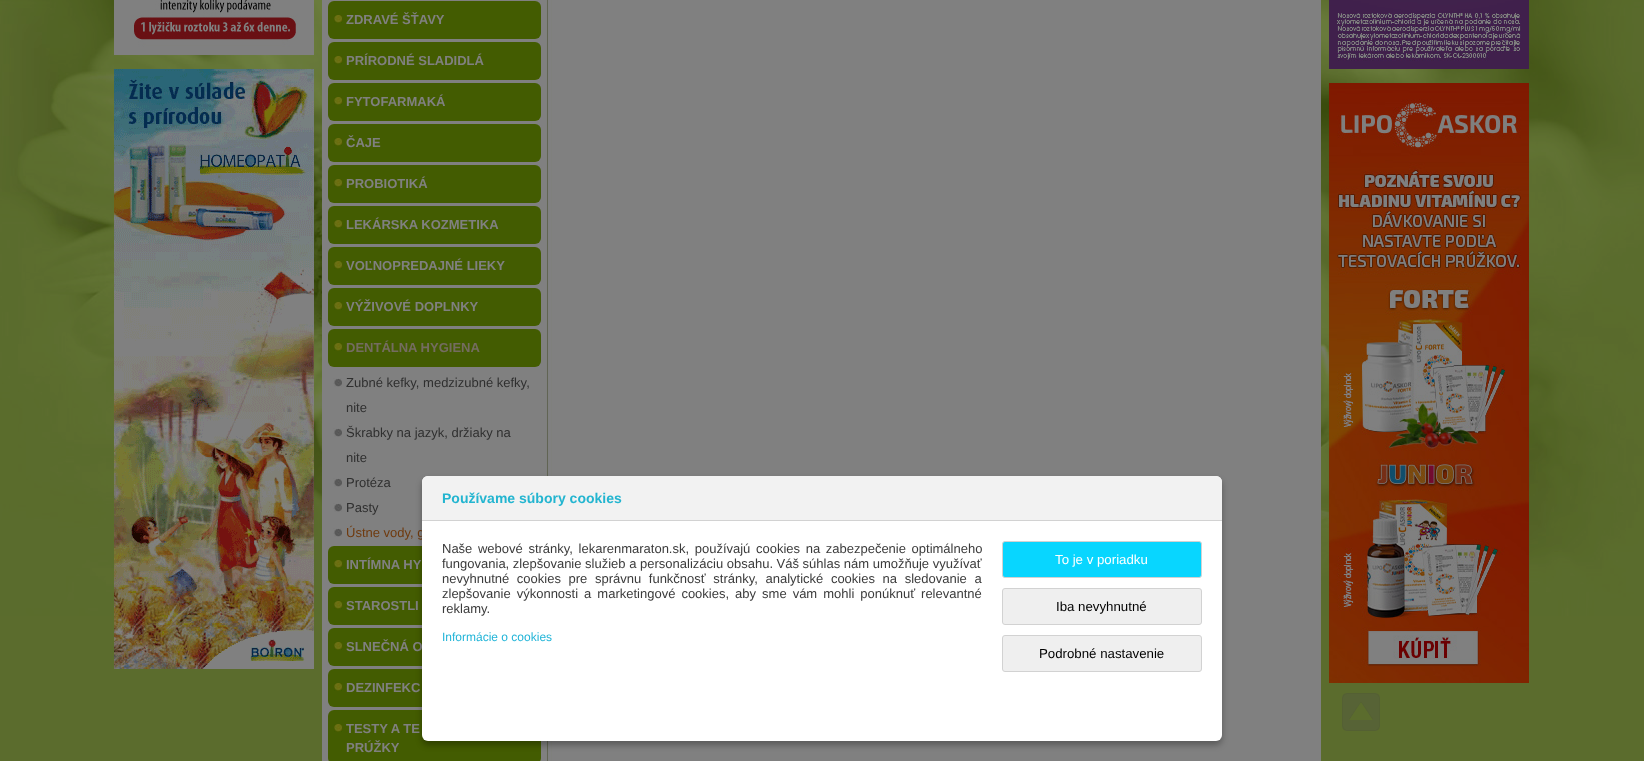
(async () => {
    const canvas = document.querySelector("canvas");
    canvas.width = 1644;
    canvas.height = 761;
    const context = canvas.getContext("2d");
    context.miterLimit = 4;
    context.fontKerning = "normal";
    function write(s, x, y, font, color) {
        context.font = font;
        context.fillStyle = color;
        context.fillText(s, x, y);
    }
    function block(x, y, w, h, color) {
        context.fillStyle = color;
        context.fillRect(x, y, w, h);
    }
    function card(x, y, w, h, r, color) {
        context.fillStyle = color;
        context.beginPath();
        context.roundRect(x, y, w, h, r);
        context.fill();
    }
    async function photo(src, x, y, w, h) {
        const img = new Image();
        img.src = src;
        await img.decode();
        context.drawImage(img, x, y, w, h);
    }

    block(0, 0, 1644, 761, "rgb(91, 108, 45)");
    await photo("media/1.png", 0, 0, 1644, 616);
    await photo("media/2.png", 114, 0, 200, 55);
    await photo("media/3.png", 114, 69, 200, 600);
    await photo("media/4.png", 322, 0, 999, 761);
    card(328, 1, 213, 38, 6, "rgb(67, 92, 1)");
    await photo("media/5.png", 334, 15, 9, 8);
    write("ZDRAVÉ ŠŤAVY", 346, 24, "bold 13px Liberation Sans", "rgb(128, 128, 128)");
    card(328, 42, 213, 38, 6, "rgb(67, 92, 1)");
    await photo("media/5.png", 334, 56, 9, 8);
    write("PRÍRODNÉ SLADIDLÁ", 346, 65, "bold 13px Liberation Sans", "rgb(128, 128, 128)");
    card(328, 83, 213, 38, 6, "rgb(67, 92, 1)");
    await photo("media/5.png", 334, 97, 9, 8);
    write("FYTOFARMAKÁ", 346, 106, "bold 13px Liberation Sans", "rgb(128, 128, 128)");
    card(328, 124, 213, 38, 6, "rgb(67, 92, 1)");
    await photo("media/5.png", 334, 138, 9, 8);
    write("ČAJE", 346, 147, "bold 13px Liberation Sans", "rgb(128, 128, 128)");
    card(328, 165, 213, 38, 6, "rgb(67, 92, 1)");
    await photo("media/5.png", 334, 179, 9, 8);
    write("PROBIOTIKÁ", 346, 188, "bold 13px Liberation Sans", "rgb(128, 128, 128)");
    card(328, 206, 213, 38, 6, "rgb(67, 92, 1)");
    await photo("media/5.png", 334, 220, 9, 8);
    write("LEKÁRSKA KOZMETIKA", 346, 229, "bold 13px Liberation Sans", "rgb(128, 128, 128)");
    card(328, 247, 213, 38, 6, "rgb(67, 92, 1)");
    await photo("media/5.png", 334, 261, 9, 8);
    write("VOĽNOPREDAJNÉ LIEKY", 346, 270, "bold 13px Liberation Sans", "rgb(128, 128, 128)");
    card(328, 288, 213, 38, 6, "rgb(67, 92, 1)");
    await photo("media/5.png", 334, 302, 9, 8);
    write("VÝŽIVOVÉ DOPLNKY", 346, 311, "bold 13px Liberation Sans", "rgb(128, 128, 128)");
    card(328, 329, 213, 38, 6, "rgb(67, 92, 1)");
    await photo("media/5.png", 334, 343, 9, 8);
    write("DENTÁLNA HYGIENA", 346, 352, "bold 13px Liberation Sans", "rgb(116, 108, 96)");
    await photo("media/6.png", 333, 378, 9, 9);
    write("Zubné kefky, medzizubné kefky,", 346, 387, "13px Liberation Sans", "rgb(47, 47, 47)");
    write("nite", 346, 412, "13px Liberation Sans", "rgb(47, 47, 47)");
    await photo("media/6.png", 333, 428, 9, 9);
    write("Škrabky na jazyk, držiaky na", 346, 437, "13px Liberation Sans", "rgb(47, 47, 47)");
    write("nite", 346, 462, "13px Liberation Sans", "rgb(47, 47, 47)");
    await photo("media/6.png", 333, 478, 9, 9);
    write("Protéza", 346, 487, "13px Liberation Sans", "rgb(47, 47, 47)");
    await photo("media/6.png", 333, 503, 9, 9);
    write("Pasty", 346, 512, "13px Liberation Sans", "rgb(47, 47, 47)");
    await photo("media/6.png", 333, 528, 9, 9);
    write("Ústne vody, g", 346, 537, "13px Liberation Sans", "rgb(111, 58, 14)");
    card(328, 546, 213, 38, 6, "rgb(67, 92, 1)");
    await photo("media/5.png", 334, 560, 9, 8);
    write("INTÍMNA HY", 346, 569, "bold 13px Liberation Sans", "rgb(128, 128, 128)");
    card(328, 587, 213, 38, 6, "rgb(67, 92, 1)");
    await photo("media/5.png", 334, 601, 9, 8);
    write("STAROSTLI", 346, 610, "bold 13px Liberation Sans", "rgb(128, 128, 128)");
    card(328, 628, 213, 38, 6, "rgb(67, 92, 1)");
    await photo("media/5.png", 334, 642, 9, 8);
    write("SLNEČNÁ O", 346, 651, "bold 13px Liberation Sans", "rgb(128, 128, 128)");
    card(328, 669, 213, 38, 6, "rgb(67, 92, 1)");
    await photo("media/5.png", 334, 683, 9, 8);
    write("DEZINFEKC", 346, 692, "bold 13px Liberation Sans", "rgb(128, 128, 128)");
    card(328, 710, 213, 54, 6, "rgb(67, 92, 1)");
    await photo("media/5.png", 334, 724, 9, 8);
    write("TESTY A TE", 346, 733, "bold 13px Liberation Sans", "rgb(128, 128, 128)");
    write("PRÚŽKY", 346, 752, "bold 13px Liberation Sans", "rgb(128, 128, 128)");
    await photo("media/7.png", 1342, 693, 38, 38);
    context.fillStyle = "rgba(0, 0, 0, 0.3)";
    context.filter = "blur(3px)";
    context.beginPath();
    context.roundRect(422, 480, 800, 265, 6);
    context.fill();
    context.filter = "none";
    card(422, 476, 800, 265, 6, "rgb(255, 255, 255)");
    context.fillStyle = "rgb(242, 242, 242)";
    context.beginPath();
    context.roundRect(422, 476, 800, 45, [6, 6, 0, 0]);
    context.fill();
    block(422, 520, 800, 1, "rgb(210, 210, 210)");
    write("Používame súbory cookies", 442, 503, "bold 14px Liberation Sans", "rgb(35, 181, 208)");
    context.wordSpacing = "2px";
    write("Naše webové stránky, lekarenmaraton.sk, používajú cookies na zabezpečenie optimálneho", 442, 553, "13px Liberation Sans", "rgb(59, 59, 59)");
    context.wordSpacing = "0px";
    write("fungovania, zlepšovanie služieb a personalizáciu obsahu. Váš súhlas nám umožňuje využívať", 442, 568, "13px Liberation Sans", "rgb(59, 59, 59)");
    context.wordSpacing = "4px";
    write("nevyhnutné cookies pre správnu funkčnosť stránky, analytické cookies na sledovanie a", 442, 583, "13px Liberation Sans", "rgb(59, 59, 59)");
    context.wordSpacing = "2.4px";
    write("zlepšovanie výkonnosti a marketingové cookies, aby sme vám mohli ponúknuť relevantné", 442, 598, "13px Liberation Sans", "rgb(59, 59, 59)");
    context.wordSpacing = "0px";
    write("reklamy.", 442, 613, "13px Liberation Sans", "rgb(59, 59, 59)");
    write("Informácie o cookies", 442, 641, "12px Liberation Sans", "rgb(35, 181, 216)");
    context.fillStyle = "rgb(8, 214, 255)";
    context.beginPath();
    context.roundRect(1002.5, 541.5, 199, 36, 2.5);
    context.fill();
    context.strokeStyle = "rgb(210, 210, 210)";
    context.stroke();
    write("To je v poriadku", 1055, 564, "13.25px Liberation Sans", "rgb(255, 255, 255)");
    context.fillStyle = "rgb(239, 239, 239)";
    context.beginPath();
    context.roundRect(1002.5, 588.5, 199, 36, 2.5);
    context.fill();
    context.stroke();
    write("Iba nevyhnutné", 1056, 611, "13.25px Liberation Sans", "rgb(0, 0, 0)");
    context.fillStyle = "rgb(239, 239, 239)";
    context.beginPath();
    context.roundRect(1002.5, 635.5, 199, 36, 2.5);
    context.fill();
    context.stroke();
    write("Podrobné nastavenie", 1039, 658, "13.25px Liberation Sans", "rgb(0, 0, 0)");
    await photo("media/8.png", 1329, 0, 200, 69);
    await photo("media/9.png", 1329, 83, 200, 600);
})();
